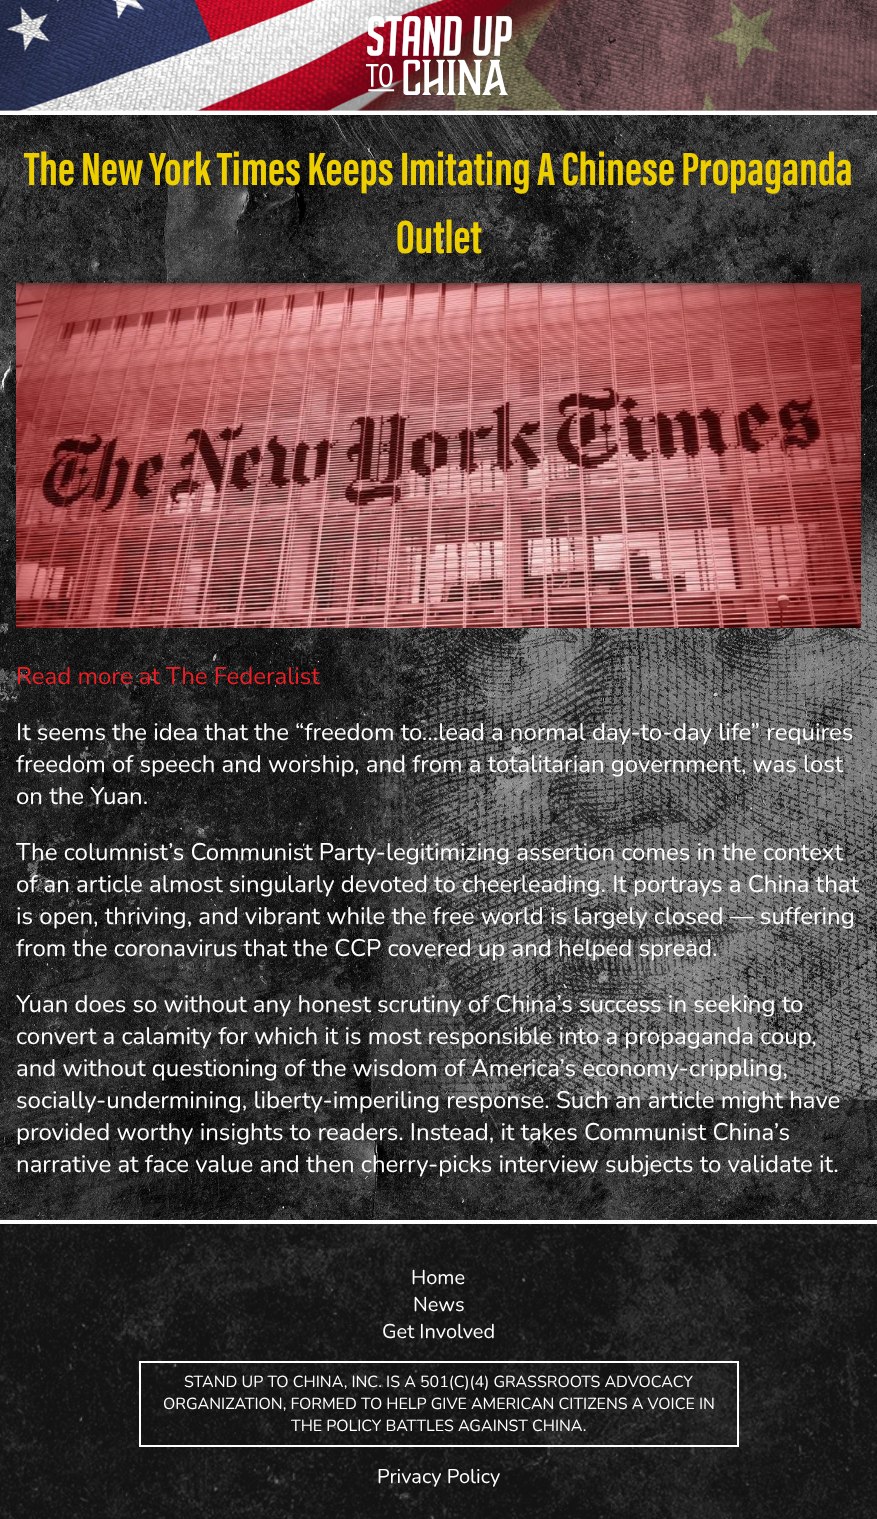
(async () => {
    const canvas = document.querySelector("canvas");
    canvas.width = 877;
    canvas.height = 1519;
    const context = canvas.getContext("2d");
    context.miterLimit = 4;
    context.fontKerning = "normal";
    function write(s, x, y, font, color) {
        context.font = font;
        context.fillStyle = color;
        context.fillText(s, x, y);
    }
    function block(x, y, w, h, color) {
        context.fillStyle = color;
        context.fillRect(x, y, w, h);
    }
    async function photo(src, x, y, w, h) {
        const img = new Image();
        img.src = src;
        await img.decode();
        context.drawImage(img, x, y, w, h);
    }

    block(0, 0, 877, 1519, "rgb(255, 255, 255)");
    await photo("media/1.png", 0, 0, 877, 111);
    await photo("media/2.png", 366, 16, 146, 79);
    await photo("media/3.png", 0, 115, 877, 1105);
    write("The New York Times Keeps Imitating A Chinese Propaganda", 24, 185, "bold 48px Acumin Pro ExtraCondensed", "rgb(237, 206, 1)");
    write("Outlet", 396, 253, "bold 48px Acumin Pro ExtraCondensed", "rgb(237, 206, 1)");
    await photo("media/4.png", 16, 283, 845, 345);
    write("Read more at The Federalist", 16, 684, "24px Nunito", "rgb(237, 31, 36)");
    write("It seems the idea that the “freedom to…lead a normal day-to-day life” requires", 16, 740, "24px Nunito", "rgb(255, 255, 255)");
    write("freedom of speech and worship, and from a totalitarian government, was lost", 16, 772, "24px Nunito", "rgb(255, 255, 255)");
    write("on the Yuan.", 16, 804, "24px Nunito", "rgb(255, 255, 255)");
    write("The columnist’s Communist Party-legitimizing assertion comes in the context", 16, 860, "24px Nunito", "rgb(255, 255, 255)");
    write("of an article almost singularly devoted to cheerleading. It portrays a China that", 16, 892, "24px Nunito", "rgb(255, 255, 255)");
    write("is open, thriving, and vibrant while the free world is largely closed — suffering", 16, 924, "24px Nunito", "rgb(255, 255, 255)");
    write("from the coronavirus that the CCP covered up and helped spread.", 16, 956, "24px Nunito", "rgb(255, 255, 255)");
    write("Yuan does so without any honest scrutiny of China’s success in seeking to", 16, 1012, "24px Nunito", "rgb(255, 255, 255)");
    write("convert a calamity for which it is most responsible into a propaganda coup,", 16, 1044, "24px Nunito", "rgb(255, 255, 255)");
    write("and without questioning of the wisdom of America’s economy-crippling,", 16, 1076, "24px Nunito", "rgb(255, 255, 255)");
    write("socially-undermining, liberty-imperiling response. Such an article might have", 16, 1108, "24px Nunito", "rgb(255, 255, 255)");
    write("provided worthy insights to readers. Instead, it takes Communist China’s", 16, 1140, "24px Nunito", "rgb(255, 255, 255)");
    write("narrative at face value and then cherry-picks interview subjects to validate it.", 16, 1172, "24px Nunito", "rgb(255, 255, 255)");
    await photo("media/5.png", 0, 1224, 877, 295);
    write("Home", 411, 1284, "20px Nunito", "rgb(255, 255, 255)");
    write("News", 413, 1311, "20px Nunito", "rgb(255, 255, 255)");
    write("Get Involved", 382, 1338, "20px Nunito", "rgb(255, 255, 255)");
    context.strokeStyle = "rgb(255, 255, 255)";
    context.lineWidth = 2;
    context.strokeRect(140, 1362, 598, 84);
    write("STAND UP TO CHINA, INC. IS A 501(C)(4) GRASSROOTS ADVOCACY", 184, 1387, "16px Nunito", "rgb(255, 255, 255)");
    write("ORGANIZATION, FORMED TO HELP GIVE AMERICAN CITIZENS A VOICE IN", 163, 1409, "16px Nunito", "rgb(255, 255, 255)");
    write("THE POLICY BATTLES AGAINST CHINA.", 291, 1431, "16px Nunito", "rgb(255, 255, 255)");
    write("Privacy Policy", 377, 1483, "20px Nunito", "rgb(255, 255, 255)");
})();
